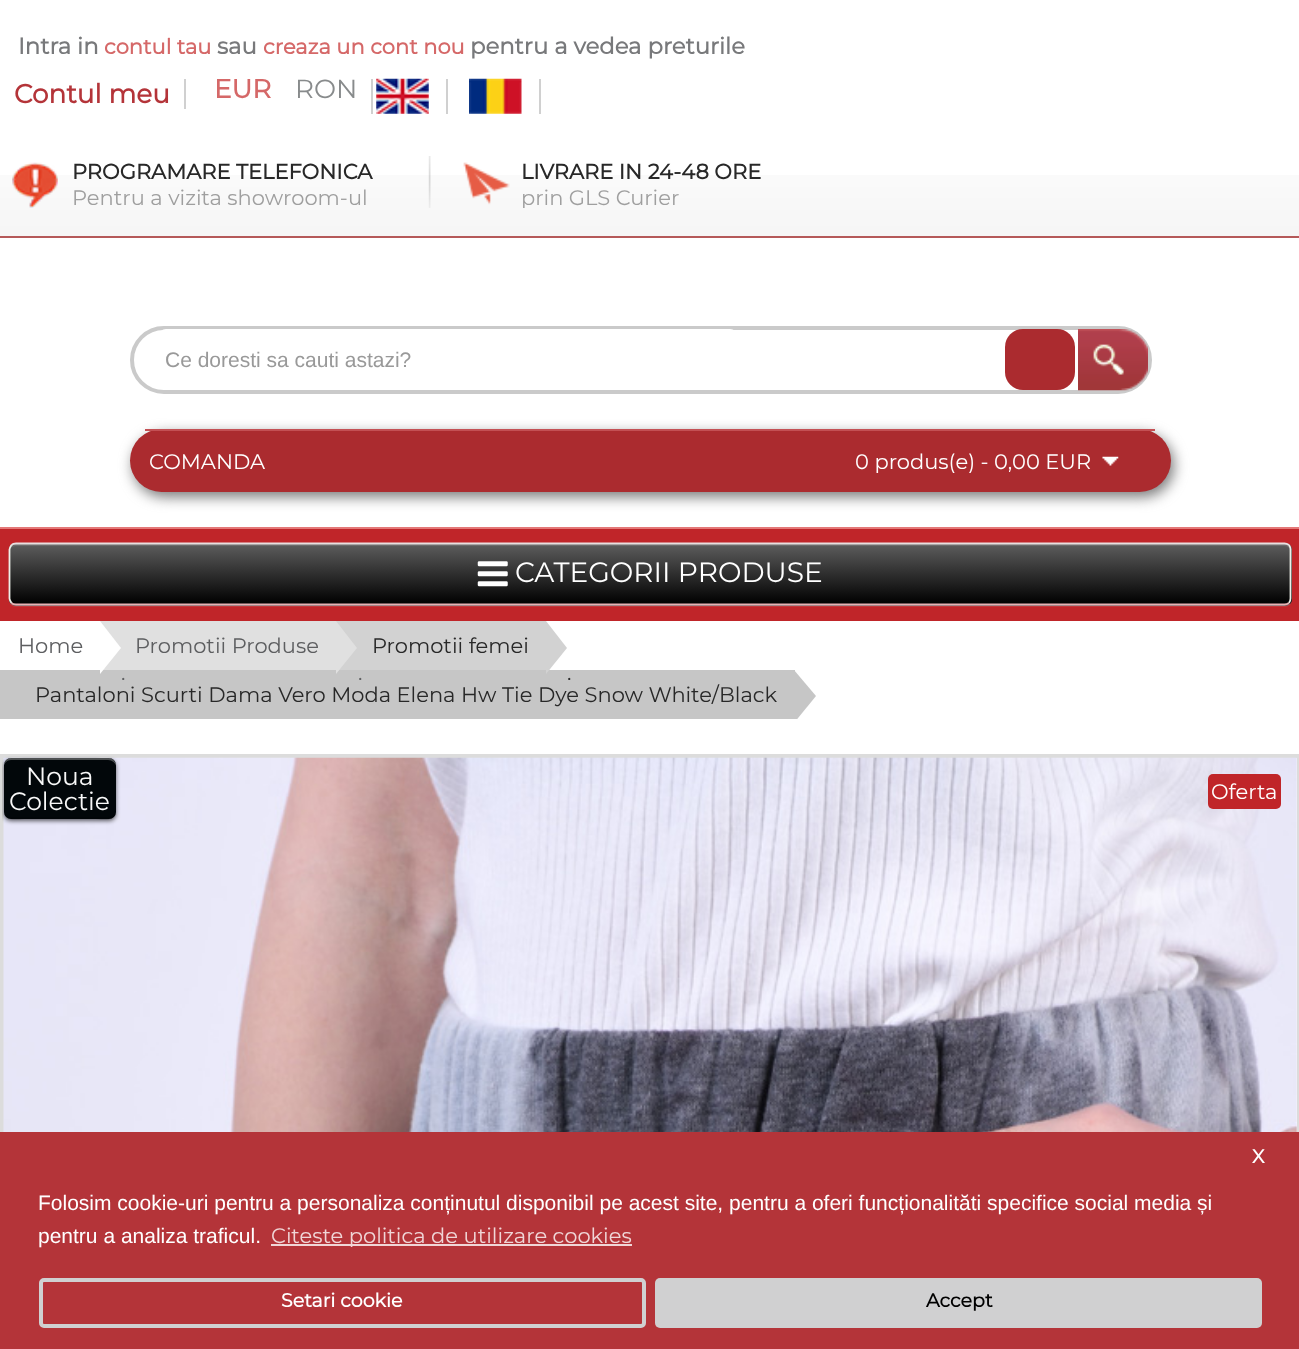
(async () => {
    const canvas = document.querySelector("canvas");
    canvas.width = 1299;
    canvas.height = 1349;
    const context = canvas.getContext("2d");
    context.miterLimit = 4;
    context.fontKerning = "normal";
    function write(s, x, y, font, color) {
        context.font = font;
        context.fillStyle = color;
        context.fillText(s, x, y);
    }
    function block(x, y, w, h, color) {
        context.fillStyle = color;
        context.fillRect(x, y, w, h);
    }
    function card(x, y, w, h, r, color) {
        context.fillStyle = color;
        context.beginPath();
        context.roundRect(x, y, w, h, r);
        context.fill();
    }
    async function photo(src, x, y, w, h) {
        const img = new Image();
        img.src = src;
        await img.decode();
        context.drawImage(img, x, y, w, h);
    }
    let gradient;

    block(0, 0, 1299, 1349, "rgb(255, 255, 255)");
    await photo("media/1.png", 0, 175, 1299, 61);
    write("Intra in", 18, 54, "bold 22.75px Montserrat", "rgb(120, 121, 123)");
    write("contul tau", 104, 54, "bold 21px Montserrat", "rgb(213, 104, 104)");
    write("sau", 217, 54, "bold 22.75px Montserrat", "rgb(120, 121, 123)");
    write("creaza un cont nou", 263, 54, "bold 21px Montserrat", "rgb(213, 104, 104)");
    write("pentru a vedea preturile", 470, 54, "bold 22.75px Montserrat", "rgb(120, 121, 123)");
    block(184, 79, 2, 30, "rgb(208, 208, 208)");
    write("Contul meu", 14, 103, "bold 26.25px Montserrat", "rgb(180, 52, 57)");
    write("EUR", 214, 98, "bold 26.25px Montserrat", "rgb(213, 104, 104)");
    write("RON", 295, 98, "100 26.25px Montserrat", "rgb(136, 139, 140)");
    block(371, 79, 2, 35, "rgb(208, 208, 208)");
    block(446, 79, 2, 35, "rgb(208, 208, 208)");
    await photo("media/2.png", 376, 78, 53, 36);
    block(539, 79, 2, 35, "rgb(208, 208, 208)");
    await photo("media/3.png", 469, 78, 53, 36);
    await photo("media/4.png", 12, 162, 46, 46);
    write("PROGRAMARE TELEFONICA", 72, 179, "bold 21px Montserrat", "rgb(40, 40, 40)");
    write("Pentru a vizita showroom-ul", 72, 205, "100 21px Montserrat", "rgb(159, 159, 159)");
    await photo("media/5.png", 428, 156, 3, 52);
    await photo("media/6.png", 463, 162, 47, 43);
    write("LIVRARE IN 24-48 ORE", 521, 179, "bold 21px Montserrat", "rgb(40, 40, 40)");
    context.save();
    context.beginPath();
    context.rect(522, 187, 323, 21);
    context.clip();
    write("prin GLS Curier", 521, 205, "100 21px Montserrat", "rgb(159, 159, 159)");
    context.restore();
    block(0, 236, 1299, 2, "rgb(181, 89, 89)");
    block(0, 527, 1299, 2, "rgb(228, 120, 120)");
    context.beginPath();
    context.roundRect(132, 328, 1018, 64, 32);
    context.strokeStyle = "rgb(202, 202, 202)";
    context.lineWidth = 4;
    context.stroke();
    card(159, 329, 578, 61, 7, "rgb(255, 255, 255)");
    write("Ce doresti sa cauti astazi?", 165, 367, "21px Liberation Sans", "rgb(153, 153, 153)");
    card(1005, 329, 70, 61, 18, "rgb(171, 43, 47)");
    await photo("media/7.png", 1078, 329, 70, 62);
    context.fillStyle = "rgb(121, 121, 121)";
    context.filter = "blur(7px)";
    context.beginPath();
    context.roundRect(133, 434, 1041, 63, 31.5);
    context.fill();
    context.filter = "none";
    card(130, 429, 1041, 63, 31.5, "rgb(171, 43, 47)");
    block(145, 429, 1010, 2, "rgb(195, 80, 84)");
    write("COMANDA", 149, 469, "100 21px Montserrat", "rgb(255, 255, 255)");
    write("0 produs(e) - 0,00 EUR", 855, 469, "100 21px Montserrat", "rgb(255, 255, 255)");
    await photo("media/8.png", 1102, 456, 17, 10);
    block(0, 529, 1299, 92, "rgb(192, 37, 41)");
    context.fillStyle = "rgb(197, 53, 57)";
    context.beginPath();
    context.moveTo(9, 600);
    context.bezierCurveTo(9, 604, 12, 607, 16, 607);
    context.lineTo(1285, 607);
    context.bezierCurveTo(1289, 607, 1292, 604, 1292, 600);
    context.lineTo(1292, 551);
    context.lineTo(1291, 548);
    context.lineTo(1292, 598);
    context.bezierCurveTo(1292, 602, 1288, 606, 1284, 606);
    context.lineTo(16, 606);
    context.bezierCurveTo(13, 606, 10, 603, 9, 600);
    context.closePath();
    context.fill();
    card(9, 543, 1283, 63, 7, "rgb(93, 93, 93)");
    context.save();
    context.beginPath();
    context.roundRect(9, 543, 1283, 63, 7);
    context.clip();
    gradient = context.createLinearGradient(650, 544, 650, 604);
    gradient.addColorStop(0, "rgb(93, 93, 93)");
    gradient.addColorStop(1, "rgb(0, 0, 0)");
    context.fillStyle = gradient;
    context.fillRect(9, 544, 1283, 60);
    context.restore();
    context.fillStyle = "rgba(255, 255, 255, 0.1)";
    context.beginPath();
    context.moveTo(16, 546);
    context.lineTo(1284, 546);
    context.bezierCurveTo(1287, 546, 1290, 548, 1290, 551);
    context.lineTo(1290, 549);
    context.bezierCurveTo(1290, 546, 1288, 544, 1285, 544);
    context.lineTo(16, 544);
    context.bezierCurveTo(14, 544, 11, 546, 11, 548);
    context.bezierCurveTo(12, 547, 14, 546, 16, 546);
    context.closePath();
    context.fill();
    context.beginPath();
    context.moveTo(11.5, 545);
    context.bezierCurveTo(12.5, 544, 14, 543.5, 16, 543.5);
    context.lineTo(1284.5, 543.5);
    context.bezierCurveTo(1286, 543.5, 1287.5, 544, 1289, 545);
    context.strokeStyle = "rgb(232, 223, 224)";
    context.lineWidth = 1.8;
    context.stroke();
    context.beginPath();
    context.moveTo(1289, 545);
    context.bezierCurveTo(1290, 546.5, 1290.5, 548, 1290.5, 549.5);
    context.lineTo(1290.5, 598.5);
    context.bezierCurveTo(1290.5, 600, 1290, 601.5, 1289, 603);
    context.strokeStyle = "rgb(237, 239, 233)";
    context.stroke();
    context.beginPath();
    context.moveTo(1289, 603);
    context.bezierCurveTo(1287.5, 604, 1286, 604.5, 1284.5, 604.5);
    context.lineTo(16, 604.5);
    context.bezierCurveTo(14, 604.5, 12.5, 604, 11.5, 603);
    context.strokeStyle = "rgb(232, 179, 181)";
    context.stroke();
    context.beginPath();
    context.moveTo(11.5, 603);
    context.bezierCurveTo(10.5, 601.5, 9.5, 600, 9.5, 598.5);
    context.lineTo(9.5, 549.5);
    context.bezierCurveTo(9.5, 548, 10.5, 546.5, 11.5, 545);
    context.strokeStyle = "rgb(237, 239, 233)";
    context.stroke();
    await photo("media/9.png", 477, 561, 31, 26);
    write("CATEGORII PRODUSE", 515, 582, "100 28px Montserrat", "rgb(255, 255, 255)");
    write("Home", 18, 653, "100 21px Montserrat", "rgb(93, 94, 96)");
    block(100, 621, 236, 49, "rgb(224, 224, 224)");
    block(0, 670, 795, 49, "rgb(198, 198, 198)");
    context.fillStyle = "rgb(255, 255, 255)";
    context.beginPath();
    context.moveTo(100, 674);
    context.lineTo(100, 621);
    context.lineTo(121, 648);
    context.closePath();
    context.fill();
    write(".", 121, 680, "100 21px Montserrat", "rgb(93, 94, 96)");
    write("Promotii Produse", 135, 653, "100 21px Montserrat", "rgb(93, 94, 96)");
    block(336, 621, 210, 49, "rgb(210, 210, 210)");
    context.fillStyle = "rgb(224, 224, 224)";
    context.beginPath();
    context.moveTo(336, 674);
    context.lineTo(336, 621);
    context.lineTo(357, 648);
    context.closePath();
    context.fill();
    write(".", 358, 680, "100 21px Montserrat", "rgb(93, 94, 96)");
    write("Promotii femei", 372, 653, "100 21px Montserrat", "rgb(40, 40, 40)");
    context.fillStyle = "rgb(210, 210, 210)";
    context.beginPath();
    context.moveTo(546, 674);
    context.lineTo(546, 621);
    context.lineTo(567, 648);
    context.closePath();
    context.fill();
    write(".", 567, 680, "100 21px Montserrat", "rgb(40, 40, 40)");
    write("Pantaloni Scurti Dama Vero Moda Elena Hw Tie Dye Snow White/Black", 35, 702, "100 21px Montserrat", "rgb(40, 40, 40)");
    context.save();
    context.beginPath();
    context.rect(0, 621, 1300, 98);
    context.clip();
    context.fillStyle = "rgb(198, 198, 198)";
    context.beginPath();
    context.moveTo(794, 723);
    context.lineTo(794, 670);
    context.lineTo(816, 696);
    context.closePath();
    context.fill();
    context.restore();
    context.strokeStyle = "rgb(220, 220, 220)";
    context.lineWidth = 2;
    context.strokeRect(1, 755, 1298, 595);
    context.strokeRect(3, 757, 1295, 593);
    await photo("media/10.png", 3, 757, 1294, 375);
    context.save();
    context.beginPath();
    context.rect(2, 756, 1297, 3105);
    context.clip();
    context.fillStyle = "rgba(0, 0, 0, 0.6)";
    context.filter = "blur(2px)";
    context.beginPath();
    context.roundRect(4, 760, 112, 61, 7);
    context.fill();
    context.filter = "none";
    context.restore();
    card(4, 758, 112, 61, 7, "rgb(2, 7, 10)");
    context.fillStyle = "rgba(0, 0, 0, 0.2)";
    context.beginPath();
    context.moveTo(4, 810);
    context.bezierCurveTo(4, 823, 18, 819, 27, 819);
    context.lineTo(93, 819);
    context.bezierCurveTo(102, 819, 116, 823, 116, 810);
    context.bezierCurveTo(116, 814, 112, 817, 108, 817);
    context.lineTo(11, 817);
    context.bezierCurveTo(7, 817, 4, 814, 4, 810);
    context.closePath();
    context.fill();
    context.fillStyle = "rgba(255, 255, 255, 0.3)";
    context.beginPath();
    context.moveTo(11, 760);
    context.lineTo(108, 760);
    context.bezierCurveTo(112, 760, 116, 763, 116, 767);
    context.bezierCurveTo(116, 754, 102, 758, 93, 758);
    context.lineTo(27, 758);
    context.bezierCurveTo(18, 758, 4, 754, 4, 767);
    context.bezierCurveTo(4, 763, 7, 760, 11, 760);
    context.closePath();
    context.fill();
    write("Noua", 26, 785, "100 25px Montserrat", "rgb(248, 248, 248)");
    write("Colectie", 9, 810, "100 25px Montserrat", "rgb(248, 248, 248)");
    card(1208, 774, 73, 35, 5, "rgb(192, 37, 41)");
    write("Oferta", 1211, 799, "100 21px Montserrat", "rgb(255, 255, 255)");
    block(0, 1132, 1299, 217, "rgb(180, 52, 57)");
    write("X", 1252, 1163, "bold 19px Montserrat", "rgb(255, 255, 255)");
    context.beginPath();
    context.roundRect(41, 1280, 603, 46, 3);
    context.strokeStyle = "rgb(208, 208, 209)";
    context.lineWidth = 4;
    context.stroke();
    write("Setari cookie", 281, 1307, "bold 19px Montserrat", "rgb(255, 255, 255)");
    card(655, 1278, 607, 50, 5, "rgb(208, 208, 209)");
    write("Accept", 926, 1307, "bold 19px Montserrat", "rgb(0, 0, 0)");
    write("Folosim cookie-uri pentru a personaliza conținutul disponibil pe acest site, pentru a oferi funcționalităti specifice social media și", 38, 1210, "21px Liberation Sans", "rgb(255, 255, 255)");
    write("pentru a analiza traficul.", 38, 1243, "21px Liberation Sans", "rgb(255, 255, 255)");
    block(271, 1244, 361, 2, "rgb(240, 214, 215)");
    write("Citeste politica de utilizare cookies", 271, 1243, "100 21px Montserrat", "rgb(240, 214, 215)");
})();
